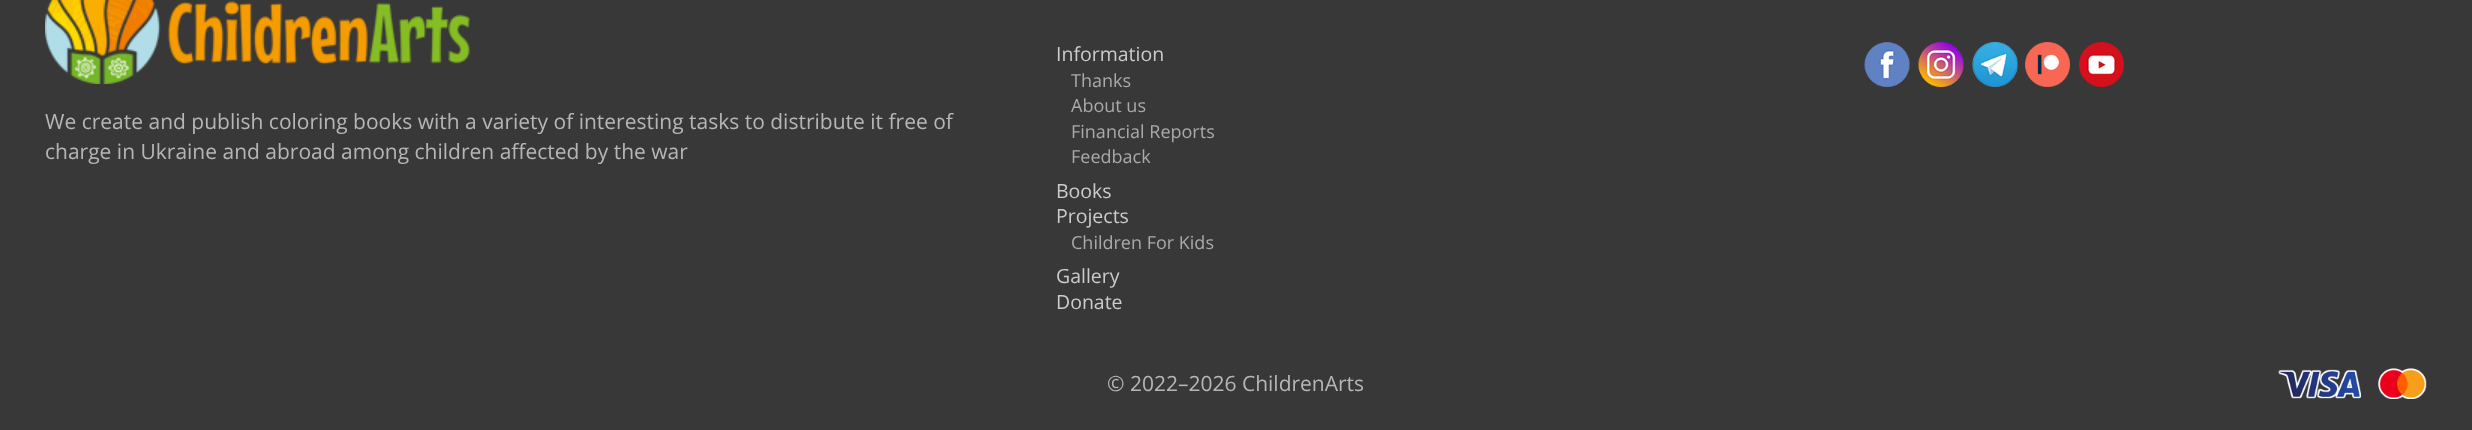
(async () => {
    const canvas = document.querySelector("canvas");
    canvas.width = 2472;
    canvas.height = 430;
    const context = canvas.getContext("2d");
    context.miterLimit = 4;
    context.fontKerning = "normal";
    function write(s, x, y, font, color) {
        context.font = font;
        context.fillStyle = color;
        context.fillText(s, x, y);
    }
    function block(x, y, w, h, color) {
        context.fillStyle = color;
        context.fillRect(x, y, w, h);
    }
    async function photo(src, x, y, w, h) {
        const img = new Image();
        img.src = src;
        await img.decode();
        context.drawImage(img, x, y, w, h);
    }

    block(0, 0, 2472, 430, "rgb(56, 56, 56)");
    await photo("media/1.png", 45, 0, 425, 84);
    write("We create and publish coloring books with a variety of interesting tasks to distribute it free of", 45, 129, "21px Open Sans", "rgb(182, 182, 182)");
    write("charge in Ukraine and abroad among children affected by the war", 45, 159, "21px Open Sans", "rgb(182, 182, 182)");
    write("Information", 1056, 61, "19.5px Open Sans", "rgb(204, 204, 204)");
    write("Thanks", 1071, 87, "18px Open Sans", "rgb(170, 170, 170)");
    write("About us", 1071, 112, "18px Open Sans", "rgb(170, 170, 170)");
    write("Financial Reports", 1071, 138, "18px Open Sans", "rgb(170, 170, 170)");
    write("Feedback", 1071, 163, "18px Open Sans", "rgb(170, 170, 170)");
    write("Books", 1056, 198, "19.5px Open Sans", "rgb(204, 204, 204)");
    write("Projects", 1056, 223, "19.5px Open Sans", "rgb(204, 204, 204)");
    write("Children For Kids", 1071, 249, "18px Open Sans", "rgb(170, 170, 170)");
    write("Gallery", 1056, 283, "19.5px Open Sans", "rgb(204, 204, 204)");
    write("Donate", 1056, 309, "19.5px Open Sans", "rgb(204, 204, 204)");
    await photo("media/2.png", 1864, 42, 46, 45);
    await photo("media/3.png", 1918, 42, 46, 45);
    await photo("media/4.png", 1972, 42, 46, 45);
    await photo("media/5.png", 2025, 42, 45, 45);
    await photo("media/6.png", 2079, 42, 45, 45);
    await photo("media/7.png", 2278, 368, 149, 31);
    write("© 2022–2026 ChildrenArts", 1107, 391, "21px Open Sans", "rgb(182, 182, 182)");
})();
